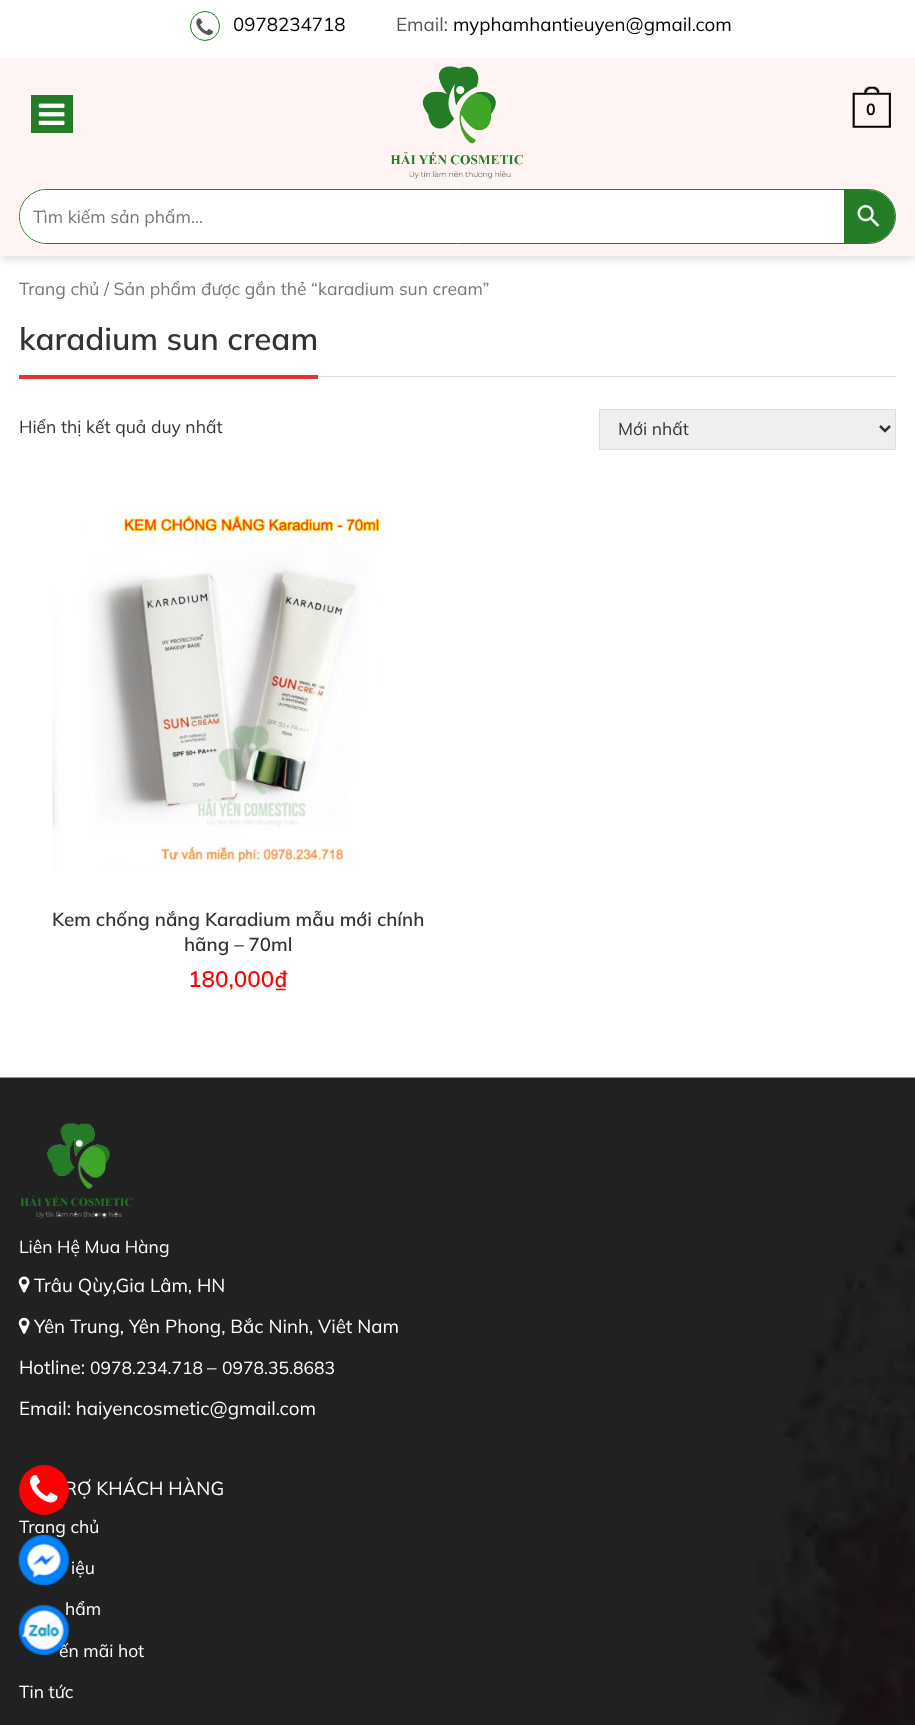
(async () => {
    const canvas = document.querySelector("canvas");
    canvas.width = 915;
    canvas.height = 1725;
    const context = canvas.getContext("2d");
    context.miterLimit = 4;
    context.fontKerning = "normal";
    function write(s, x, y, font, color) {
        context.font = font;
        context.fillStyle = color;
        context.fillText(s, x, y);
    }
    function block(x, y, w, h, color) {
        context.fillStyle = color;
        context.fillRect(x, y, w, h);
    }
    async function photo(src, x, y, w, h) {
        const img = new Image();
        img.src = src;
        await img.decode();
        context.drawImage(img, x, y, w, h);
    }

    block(0, 0, 915, 1725, "rgb(255, 255, 255)");
    context.save();
    context.beginPath();
    context.rect(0, 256, 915, 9);
    context.clip();
    context.fillStyle = "rgba(0, 0, 0, 0.16)";
    context.filter = "blur(6px)";
    context.beginPath();
    context.rect(1, 1, 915, 257);
    context.fill();
    context.filter = "none";
    context.restore();
    context.beginPath();
    context.arc(205, 26, 14.5, 0, Math.PI * 2);
    context.strokeStyle = "rgb(36, 124, 38)";
    context.stroke();
    await photo("media/1.png", 196, 18, 17, 17);
    write("0978234718", 233, 31, "18.75px Mulish", "rgb(0, 0, 0)");
    write("Email:", 396, 31, "18.75px Mulish", "rgb(85, 85, 85)");
    write("myphamhantieuyen@gmail.com", 453, 31, "18.75px Mulish", "rgb(0, 0, 0)");
    block(0, 58, 915, 198, "rgb(255, 243, 243)");
    block(31, 95, 42, 38, "rgb(36, 124, 38)");
    await photo("media/2.png", 38, 103, 27, 22);
    await photo("media/3.png", 390, 66, 133, 113);
    await photo("media/4.png", 852, 86, 39, 42);
    write("0", 866, 115, "bold 16px Mulish", "rgb(0, 0, 0)");
    context.beginPath();
    context.roundRect(19.5, 189.5, 876, 54, 27);
    context.stroke();
    context.fillStyle = "rgb(36, 124, 38)";
    context.beginPath();
    context.roundRect(843, 190, 52, 53, [0, 26.5, 26.5, 0]);
    context.fill();
    context.fillStyle = "rgb(255, 255, 255)";
    context.beginPath();
    context.roundRect(20, 190, 824, 53, [26.5, 0, 0, 26.5]);
    context.fill();
    write("Tìm kiếm sản phẩm...", 33, 223, "17.5px Mulish", "rgb(118, 118, 118)");
    await photo("media/5.png", 857, 205, 23, 22);
    write("Trang chủ / Sản phẩm được gắn thẻ “karadium sun cream”", 19, 295, "17.5px Mulish", "rgb(118, 118, 118)");
    block(318, 376, 578, 1, "rgb(221, 221, 221)");
    block(19, 375, 299, 4, "rgb(229, 51, 45)");
    write("karadium sun cream", 19, 350, "600 31.25px Mulish", "rgb(51, 51, 51)");
    write("Hiển thị kết quả duy nhất", 19, 433, "17.5px Mulish", "rgb(51, 51, 51)");
    context.fillStyle = "rgb(239, 239, 239)";
    context.beginPath();
    context.rect(599.5, 409.5, 296, 40);
    context.fill();
    context.strokeStyle = "rgb(221, 221, 221)";
    context.stroke();
    context.beginPath();
    context.moveTo(880, 426);
    context.lineTo(885, 431);
    context.lineTo(890, 426);
    context.strokeStyle = "rgb(51, 51, 51)";
    context.lineWidth = 2.5;
    context.stroke();
    write("Mới nhất", 618, 435, "17.5px Mulish", "rgb(51, 51, 51)");
    await photo("media/6.png", 52, 514, 332, 356);
    write("Kem chống nắng Karadium mẫu mới chính", 52, 926, "600 18.75px Mulish", "rgb(51, 51, 51)");
    write("hãng – 70ml", 184, 951, "600 18.75px Mulish", "rgb(51, 51, 51)");
    write("180,000₫", 188, 987, "600 22.5px Mulish", "rgb(255, 0, 0)");
    await photo("media/7.png", 0, 1077, 915, 648);
    await photo("media/8.png", 20, 1123, 113, 96);
    write("Liên Hệ Mua Hàng", 19, 1253, "17.5px Mulish", "rgb(255, 255, 255)");
    await photo("media/9.png", 18, 1276, 12, 17);
    write("Trâu Qùy,Gia Lâm, HN", 34, 1292, "18.75px Mulish", "rgb(255, 255, 255)");
    await photo("media/10.png", 18, 1317, 12, 17);
    write("Yên Trung, Yên Phong, Bắc Ninh, Viêt Nam", 34, 1333, "18.75px Mulish", "rgb(255, 255, 255)");
    write("Hotline:", 19, 1374, "18.75px Mulish", "rgb(255, 255, 255)");
    write("0978.234.718", 90, 1374, "17.5px Mulish", "rgb(255, 255, 255)");
    write("–", 207, 1374, "18.75px Mulish", "rgb(255, 255, 255)");
    write("0978.35.8683", 222, 1374, "17.5px Mulish", "rgb(255, 255, 255)");
    write("Email: haiyencosmetic@gmail.com", 19, 1415, "18.75px Mulish", "rgb(255, 255, 255)");
    write("RỢ KHÁCH HÀNG", 64, 1495, "18.75px Mulish", "rgb(255, 255, 255)");
    write("Trang chủ", 19, 1533, "17.5px Mulish", "rgb(255, 255, 255)");
    write("iệu", 71, 1574, "17.5px Mulish", "rgb(255, 255, 255)");
    write("hẩm", 65, 1615, "17.5px Mulish", "rgb(255, 255, 255)");
    write("ến mãi hot", 59, 1657, "17.5px Mulish", "rgb(255, 255, 255)");
    write("Tin tức", 19, 1698, "17.5px Mulish", "rgb(255, 255, 255)");
    context.fillStyle = "rgb(255, 0, 0)";
    context.beginPath();
    context.arc(44, 1490, 25, 0, Math.PI * 2);
    context.fill();
    await photo("media/11.png", 30, 1475, 28, 28);
    await photo("media/12.png", 18, 1535, 51, 50);
    await photo("media/13.png", 18, 1605, 51, 50);
})();
